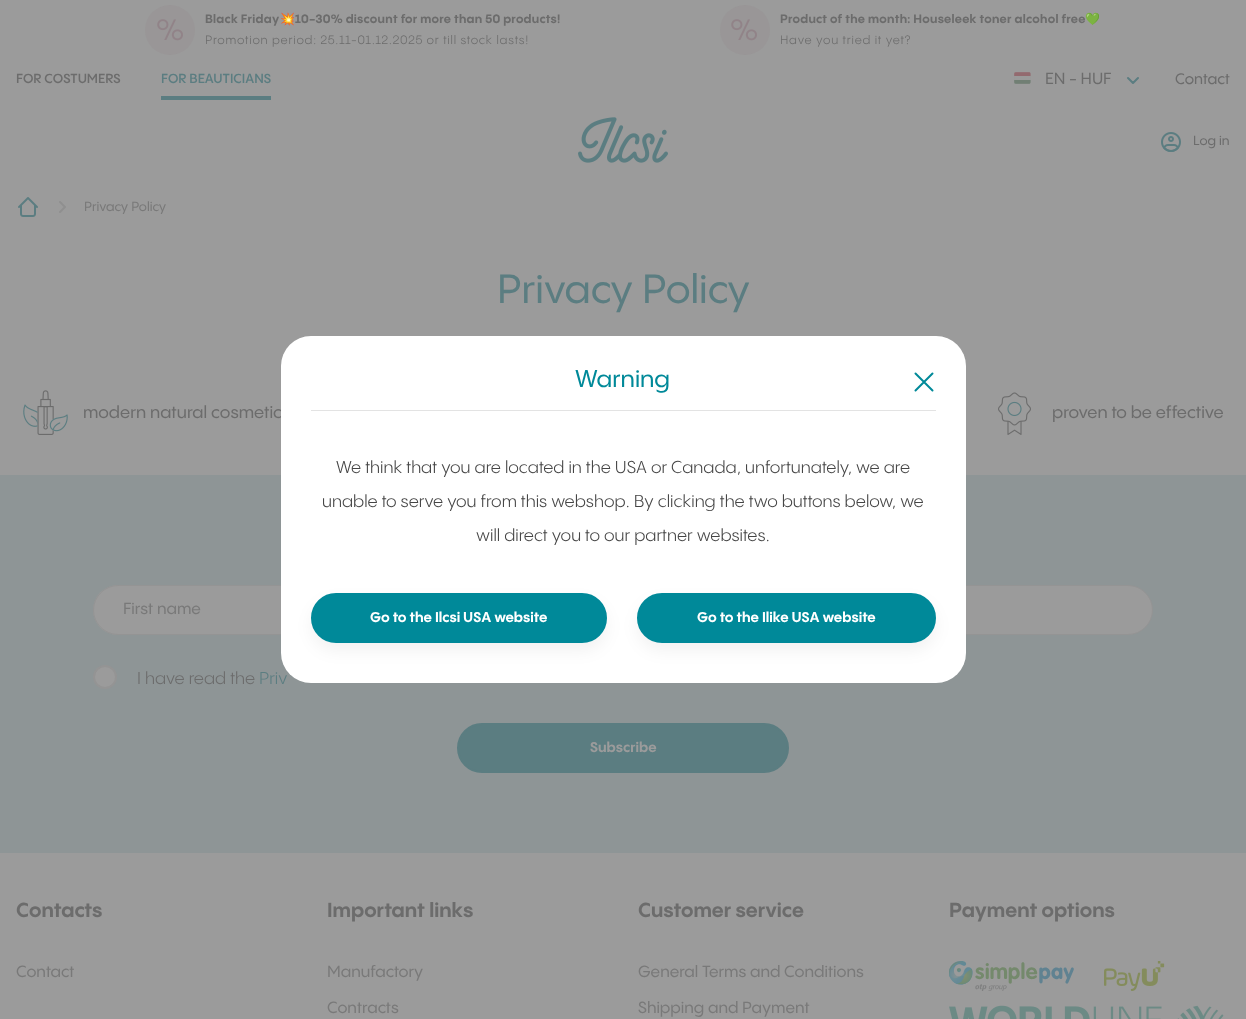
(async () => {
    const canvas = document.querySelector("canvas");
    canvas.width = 1246;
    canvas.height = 1019;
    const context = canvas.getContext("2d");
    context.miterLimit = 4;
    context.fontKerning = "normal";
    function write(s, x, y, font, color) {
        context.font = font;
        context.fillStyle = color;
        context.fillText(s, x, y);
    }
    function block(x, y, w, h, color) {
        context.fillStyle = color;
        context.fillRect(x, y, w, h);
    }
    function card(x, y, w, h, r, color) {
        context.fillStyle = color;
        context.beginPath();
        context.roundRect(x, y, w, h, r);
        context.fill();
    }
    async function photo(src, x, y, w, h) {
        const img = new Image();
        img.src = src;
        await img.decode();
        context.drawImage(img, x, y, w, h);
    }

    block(0, 0, 1246, 1019, "rgb(155, 155, 155)");
    context.fillStyle = "rgb(153, 150, 151)";
    context.beginPath();
    context.arc(170, 30, 25, 0, Math.PI * 2);
    context.fill();
    await photo("media/1.png", 157, 19, 26, 22);
    context.letterSpacing = "0.25px";
    write("Black Friday", 205, 23, "bold 12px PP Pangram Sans", "rgb(108, 108, 108)");
    write("💥", 280, 23, "bold 12px Noto Color Emoji", "rgb(108, 108, 108)");
    write("10-30% discount for more than 50 products!", 295, 23, "bold 12px PP Pangram Sans", "rgb(108, 108, 108)");
    context.letterSpacing = "0.75px";
    write("Promotion period: 25.11-01.12.2025 or till stock lasts!", 205, 44, "12px PP Pangram Sans", "rgb(108, 108, 108)");
    context.fillStyle = "rgb(153, 150, 151)";
    context.beginPath();
    context.arc(745, 30, 25, 0, Math.PI * 2);
    context.fill();
    await photo("media/1.png", 731, 19, 26, 22);
    context.letterSpacing = "0.25px";
    write("Product of the month: Houseleek toner alcohol free", 780, 23, "bold 12px PP Pangram Sans", "rgb(108, 108, 108)");
    write("💚", 1085, 23, "bold 12px Noto Color Emoji", "rgb(108, 108, 108)");
    context.letterSpacing = "0.75px";
    write("Have you tried it yet?", 780, 44, "12px PP Pangram Sans", "rgb(108, 108, 108)");
    context.letterSpacing = "0px";
    write("FOR COSTUMERS", 16, 83, "600 13px PP Pangram Sans", "rgb(108, 108, 108)");
    write("FOR BEAUTICIANS", 161, 83, "600 13px PP Pangram Sans", "rgb(91, 125, 129)");
    block(161, 96, 110, 4, "rgb(91, 125, 129)");
    await photo("media/2.png", 1014, 72, 17, 12);
    write("EN - HUF", 1045, 84, "500 16px PP Pangram Sans", "rgb(108, 108, 108)");
    context.beginPath();
    context.moveTo(1128, 78);
    context.lineTo(1133, 83);
    context.moveTo(1133, 83);
    context.lineTo(1138, 78);
    context.strokeStyle = "rgb(91, 125, 129)";
    context.lineWidth = 2;
    context.lineCap = "round";
    context.lineJoin = "round";
    context.stroke();
    write("Contact", 1175, 84, "500 15px PP Pangram Sans", "rgb(108, 108, 108)");
    await photo("media/3.png", 578, 117, 90, 46);
    await photo("media/4.png", 1161, 132, 20, 20);
    write("Log in", 1193, 145, "500 13px PP Pangram Sans", "rgb(108, 108, 108)");
    await photo("media/5.png", 18, 197, 20, 20);
    context.beginPath();
    context.moveTo(60, 212);
    context.lineTo(65, 207);
    context.moveTo(65, 207);
    context.lineTo(60, 202);
    context.strokeStyle = "rgb(143, 143, 143)";
    context.stroke();
    write("Privacy Policy", 84, 211, "500 13px PP Pangram Sans", "rgb(121, 121, 121)");
    write("Privacy Policy", 497, 303, "500 40px PP Pangram Sans", "rgb(91, 125, 129)");
    await photo("media/6.png", 23, 390, 45, 45);
    write("modern natural cosmetic", 83, 418, "500 17px PP Pangram Sans", "rgb(108, 108, 108)");
    await photo("media/7.png", 998, 392, 33, 43);
    write("proven to be effective", 1052, 418, "500 17px PP Pangram Sans", "rgb(108, 108, 108)");
    block(0, 475, 1246, 378, "rgb(142, 149, 150)");
    card(93, 585, 340, 50, 25, "rgb(155, 155, 155)");
    context.beginPath();
    context.roundRect(93.5, 585.5, 339, 49, 24.5);
    context.strokeStyle = "rgb(148, 148, 148)";
    context.lineWidth = 1;
    context.lineJoin = "miter";
    context.stroke();
    write("First name", 123, 614, "500 16px PP Pangram Sans", "rgb(121, 121, 121)");
    context.fillStyle = "rgb(155, 155, 155)";
    context.beginPath();
    context.roundRect(813.5, 585.5, 339, 49, 24.5);
    context.fill();
    context.stroke();
    context.beginPath();
    context.arc(105, 677, 11, 0, Math.PI * 2);
    context.fill();
    context.lineWidth = 2;
    context.stroke();
    write("I have read the", 137, 684, "17px PP Pangram Sans", "rgb(108, 108, 108)");
    context.wordSpacing = "-1px";
    write("Priv", 259, 684, "17px PP Pangram Sans", "rgb(91, 125, 129)");
    context.beginPath();
    context.roundRect(458, 724, 330, 48, 24);
    context.fill();
    context.strokeStyle = "rgb(91, 125, 129)";
    context.stroke();
    context.wordSpacing = "0px";
    write("Subscribe", 590, 752, "bold 14px PP Pangram Sans", "rgb(155, 155, 155)");
    write("Contacts", 16, 917, "bold 20px PP Pangram Sans", "rgb(108, 108, 108)");
    write("Contact", 16, 977, "500 16px PP Pangram Sans", "rgb(121, 121, 121)");
    write("Important links", 327, 917, "bold 20px PP Pangram Sans", "rgb(108, 108, 108)");
    write("Manufactory", 327, 977, "500 16px PP Pangram Sans", "rgb(121, 121, 121)");
    write("Contracts", 327, 1013, "500 16px PP Pangram Sans", "rgb(121, 121, 121)");
    write("Customer service", 638, 917, "bold 20px PP Pangram Sans", "rgb(108, 108, 108)");
    write("General Terms and Conditions", 638, 977, "500 16px PP Pangram Sans", "rgb(121, 121, 121)");
    write("Shipping and Payment", 638, 1013, "500 16px PP Pangram Sans", "rgb(121, 121, 121)");
    write("Payment options", 949, 917, "bold 20px PP Pangram Sans", "rgb(108, 108, 108)");
    await photo("media/8.png", 949, 961, 125, 30);
    await photo("media/9.png", 1104, 961, 61, 30);
    await photo("media/10.png", 949, 1005, 275, 14);
    card(281, 336, 685, 347, 30, "rgb(255, 255, 255)");
    block(311, 410, 625, 1, "rgb(227, 227, 227)");
    write("Warning", 575, 387, "500 24px PP Pangram Sans", "rgb(0, 137, 153)");
    context.beginPath();
    context.moveTo(915.5, 373.5);
    context.lineTo(932.5, 390.5);
    context.moveTo(915.5, 390.5);
    context.lineTo(932.5, 373.5);
    context.strokeStyle = "rgb(0, 137, 153)";
    context.lineJoin = "round";
    context.stroke();
    write("We think that you are located in the USA or Canada, unfortunately, we are", 336, 473, "17px PP Pangram Sans", "rgb(69, 69, 69)");
    write("unable to serve you from this webshop. By clicking the two buttons below, we", 322, 507, "17px PP Pangram Sans", "rgb(69, 69, 69)");
    write("will direct you to our partner websites.", 476, 541, "17px PP Pangram Sans", "rgb(69, 69, 69)");
    context.fillStyle = "rgba(0, 0, 0, 0.05)";
    context.filter = "blur(8px)";
    context.beginPath();
    context.roundRect(311, 601, 296, 50, 25);
    context.fill();
    context.filter = "none";
    context.fillStyle = "rgb(0, 137, 153)";
    context.beginPath();
    context.roundRect(312, 594, 294, 48, 24);
    context.fill();
    context.lineJoin = "miter";
    context.stroke();
    write("Go to the Ilcsi USA website", 370, 622, "bold 14px PP Pangram Sans", "rgb(255, 255, 255)");
    context.fillStyle = "rgba(0, 0, 0, 0.05)";
    context.filter = "blur(8px)";
    context.beginPath();
    context.roundRect(637, 601, 299, 50, 25);
    context.fill();
    context.filter = "none";
    context.fillStyle = "rgb(0, 137, 153)";
    context.beginPath();
    context.roundRect(638, 594, 297, 48, 24);
    context.fill();
    context.stroke();
    write("Go to the Ilike USA website", 697, 622, "bold 14px PP Pangram Sans", "rgb(255, 255, 255)");
})();
